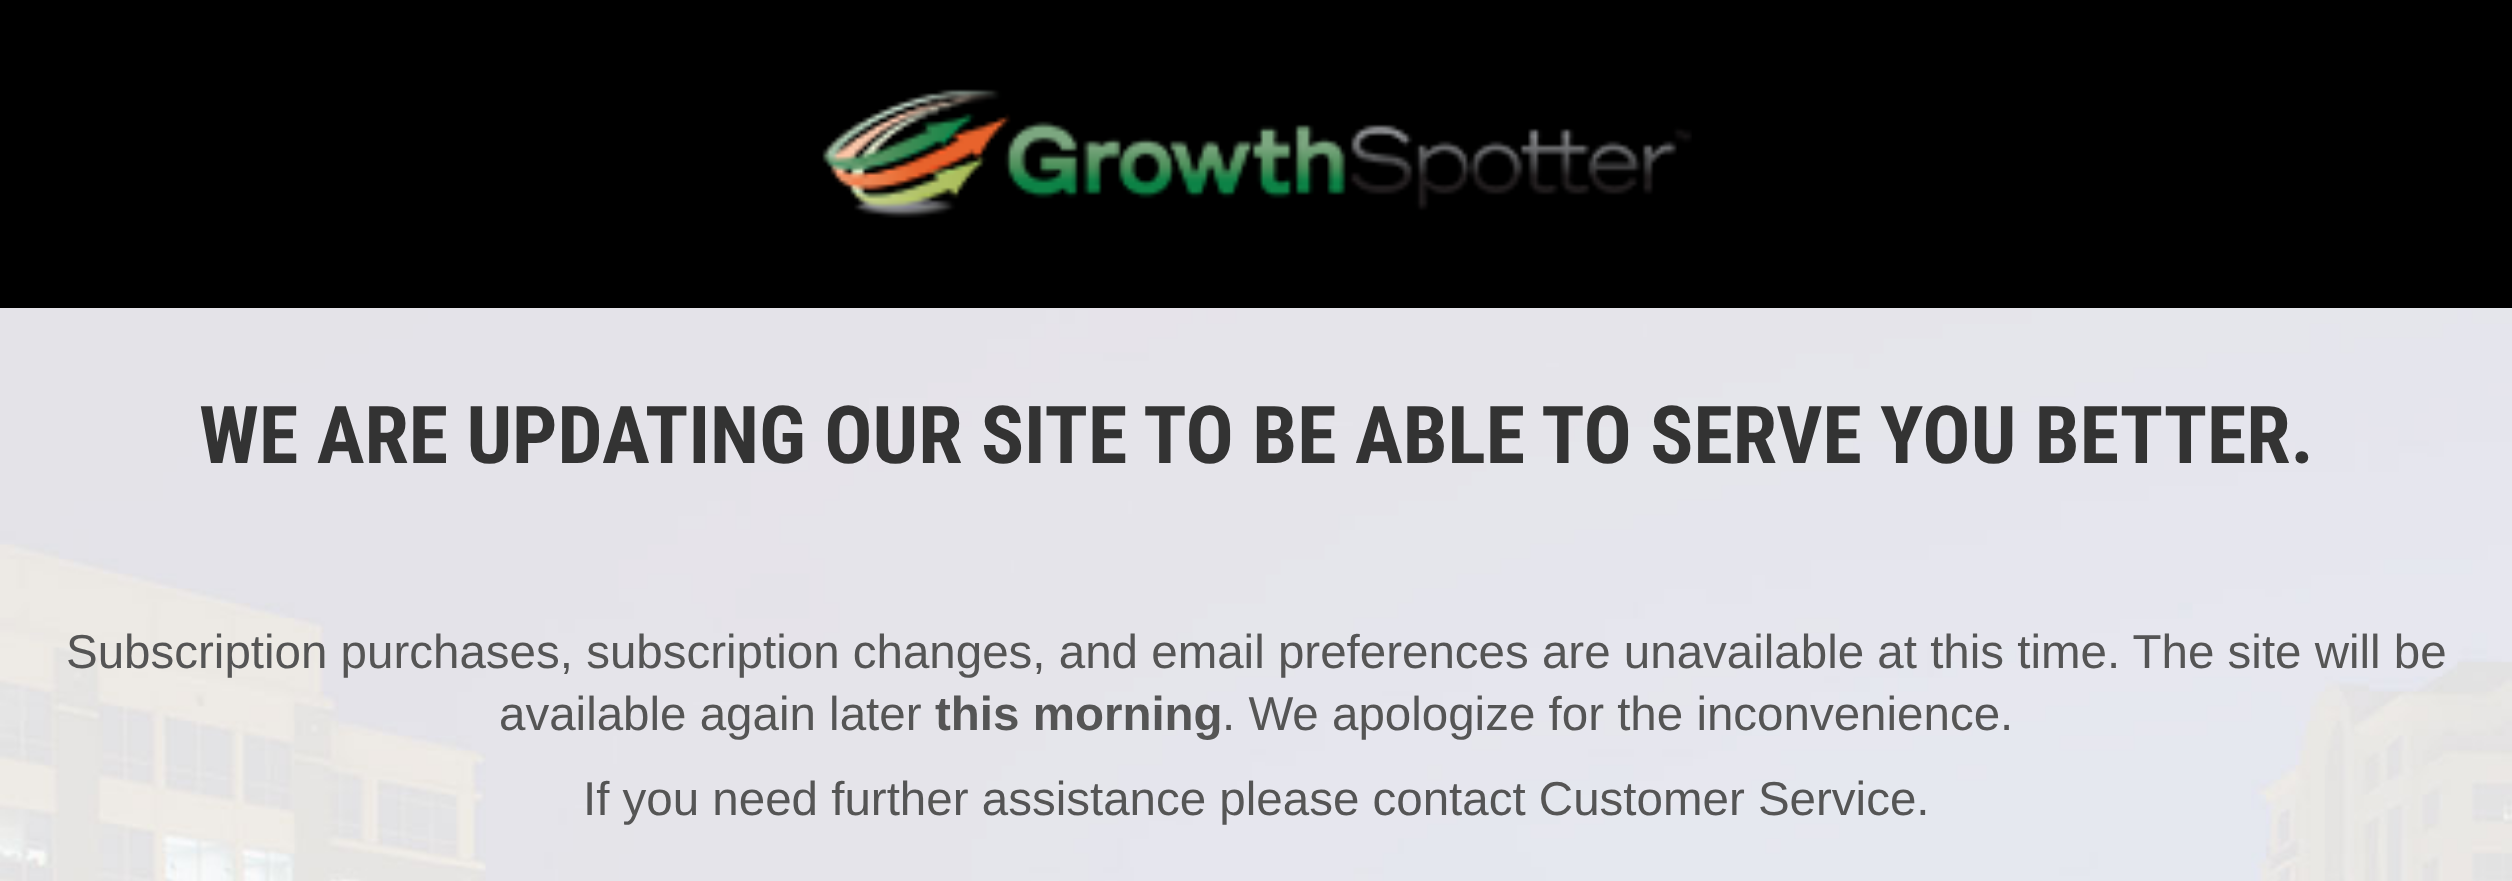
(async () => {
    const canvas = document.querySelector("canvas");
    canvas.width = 2512;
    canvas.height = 881;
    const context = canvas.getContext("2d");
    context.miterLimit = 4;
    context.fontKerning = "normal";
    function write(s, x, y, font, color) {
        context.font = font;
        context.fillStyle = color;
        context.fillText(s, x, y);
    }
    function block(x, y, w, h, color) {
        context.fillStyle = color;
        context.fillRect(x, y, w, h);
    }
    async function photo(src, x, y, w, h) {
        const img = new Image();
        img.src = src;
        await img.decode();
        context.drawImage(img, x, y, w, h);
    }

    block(0, 0, 2512, 881, "rgb(255, 255, 255)");
    await photo("media/1.png", 0, 308, 2512, 573);
    block(0, 0, 2512, 308, "rgb(0, 0, 0)");
    await photo("media/2.png", 822, 89, 870, 129);
    write("WE ARE UPDATING OUR SITE TO BE ABLE TO SERVE YOU BETTER.", 199, 463, "bold 80px Roboto Condensed", "rgb(51, 51, 51)");
    write("Subscription purchases, subscription changes, and email preferences are unavailable at this time. The site will be", 66, 668, "47.5px Liberation Sans", "rgb(85, 85, 85)");
    write("available again later", 499, 730, "47.5px Liberation Sans", "rgb(85, 85, 85)");
    write("this morning", 935, 730, "bold 47.5px Liberation Sans", "rgb(85, 85, 85)");
    write(". We apologize for the inconvenience.", 1222, 730, "47.5px Liberation Sans", "rgb(85, 85, 85)");
    write("If you need further assistance please contact Customer Service.", 583, 815, "47.5px Liberation Sans", "rgb(85, 85, 85)");
})();
